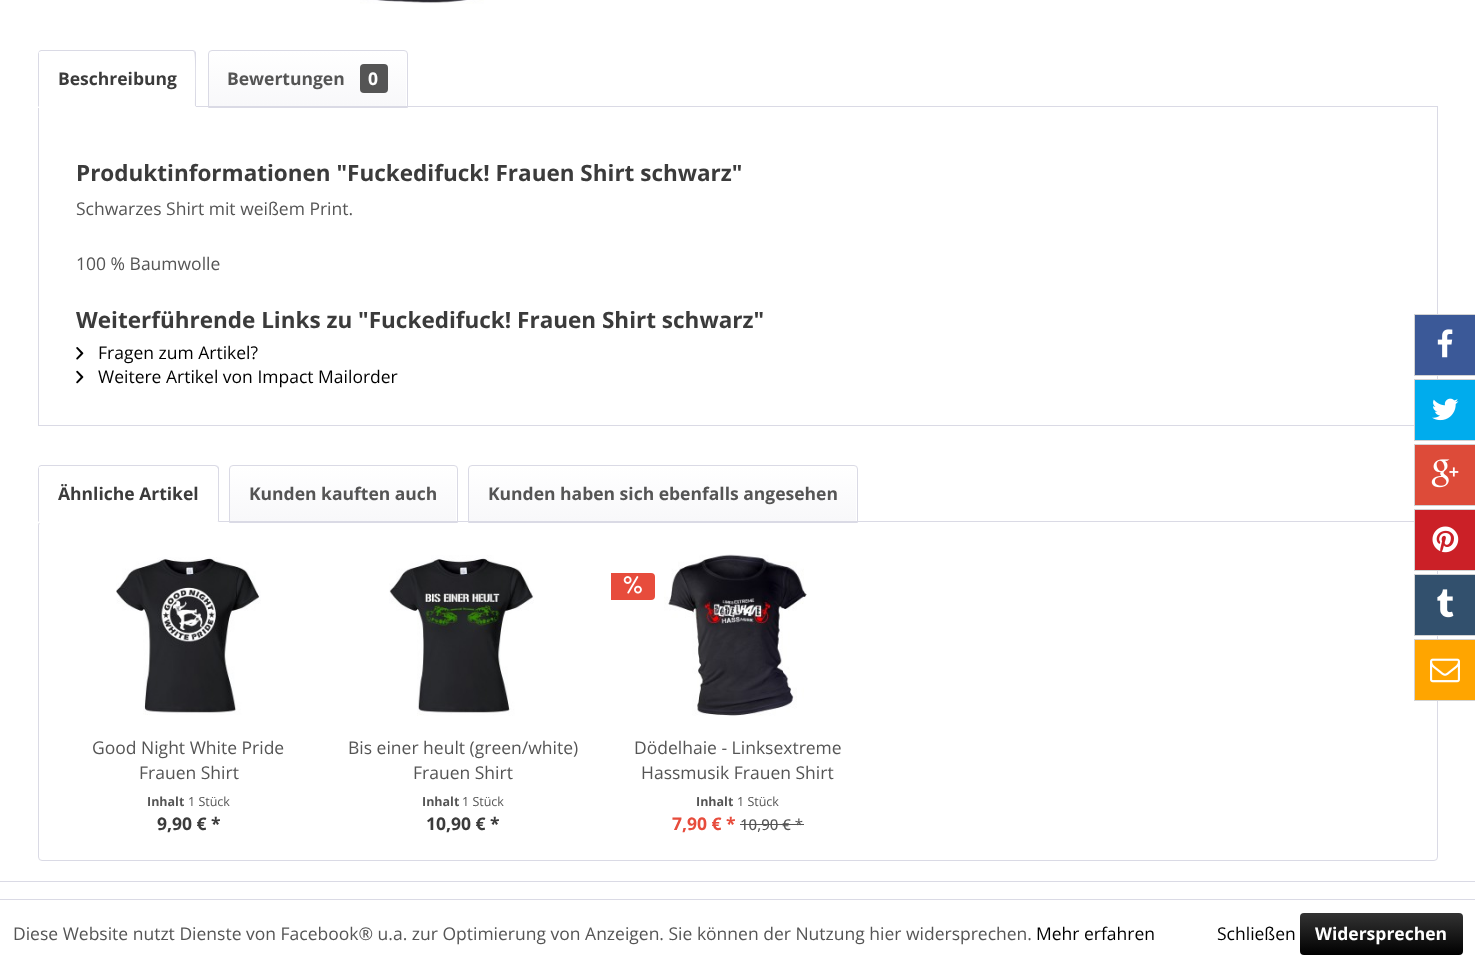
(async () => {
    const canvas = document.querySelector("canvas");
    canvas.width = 1475;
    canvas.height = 967;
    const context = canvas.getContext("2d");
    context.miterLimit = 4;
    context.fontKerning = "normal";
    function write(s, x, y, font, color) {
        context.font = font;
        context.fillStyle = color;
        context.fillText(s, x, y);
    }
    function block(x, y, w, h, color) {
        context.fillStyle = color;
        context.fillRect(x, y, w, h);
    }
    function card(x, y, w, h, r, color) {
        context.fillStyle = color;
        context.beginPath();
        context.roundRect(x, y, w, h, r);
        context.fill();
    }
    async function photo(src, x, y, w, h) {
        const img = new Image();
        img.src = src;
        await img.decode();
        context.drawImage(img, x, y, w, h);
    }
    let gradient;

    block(0, 0, 1475, 967, "rgb(255, 255, 255)");
    await photo("media/1.png", 360, 0, 124, 4);
    context.strokeStyle = "rgb(218, 218, 229)";
    context.strokeRect(38.5, 106.5, 1399, 319);
    context.beginPath();
    context.roundRect(38, 50, 158, 58, [4, 4, 0, 0]);
    context.fill();
    context.fillStyle = "rgb(218, 218, 229)";
    context.beginPath();
    context.moveTo(41, 50);
    context.lineTo(39, 51);
    context.lineTo(39, 52);
    context.lineTo(41, 51);
    context.lineTo(193, 51);
    context.lineTo(194, 52);
    context.lineTo(195, 51);
    context.bezierCurveTo(194, 50, 193, 50, 192, 50);
    context.closePath();
    context.fill();
    context.beginPath();
    context.moveTo(195, 51);
    context.bezierCurveTo(196, 52, 196, 53, 196, 54);
    context.lineTo(196, 107);
    context.lineTo(195, 106);
    context.bezierCurveTo(195, 100, 196, 54, 194, 52);
    context.closePath();
    context.fill();
    context.fillStyle = "rgb(255, 255, 255)";
    context.beginPath();
    context.moveTo(38, 108);
    context.lineTo(39, 106);
    context.lineTo(195, 106);
    context.lineTo(196, 107);
    context.closePath();
    context.fill();
    context.fillStyle = "rgb(218, 218, 229)";
    context.beginPath();
    context.moveTo(39, 51);
    context.lineTo(38, 54);
    context.lineTo(38, 107);
    context.lineTo(39, 106);
    context.lineTo(39, 54);
    context.lineTo(39, 52);
    context.closePath();
    context.fill();
    write("Beschreibung", 58, 85, "bold 17.5px Open Sans", "rgb(59, 59, 59)");
    gradient = context.createLinearGradient(308, 51, 308, 106);
    gradient.addColorStop(0, "rgb(255, 255, 255)");
    gradient.addColorStop(1, "rgb(248, 248, 250)");
    context.fillStyle = gradient;
    context.beginPath();
    context.roundRect(209, 51, 197, 55, [2.5, 2.5, 0, 0]);
    context.fill();
    context.beginPath();
    context.roundRect(208.5, 50.5, 199, 57, [3.5, 3.5, 0, 0]);
    context.stroke();
    write("Bewertungen", 227, 85, "bold 17.5px Open Sans", "rgb(85, 85, 85)");
    card(360, 64, 28, 29, 4, "rgb(85, 85, 85)");
    write("0", 368, 85, "bold 17.5px Open Sans", "rgb(255, 255, 255)");
    write("Produktinformationen \"Fuckedifuck! Frauen Shirt schwarz\"", 76, 181, "bold 22.5px Open Sans", "rgb(59, 59, 59)");
    write("Schwarzes Shirt mit weißem Print.", 76, 215, "17.5px Open Sans", "rgb(85, 85, 85)");
    write("100 % Baumwolle", 76, 270, "17.5px Open Sans", "rgb(85, 85, 85)");
    write("Weiterführende Links zu \"Fuckedifuck! Frauen Shirt schwarz\"", 76, 328, "bold 22.5px Open Sans", "rgb(59, 59, 59)");
    await photo("media/2.png", 76, 347, 8, 13);
    write("Fragen zum Artikel?", 98, 359, "17.5px Open Sans", "rgb(0, 0, 0)");
    await photo("media/3.png", 76, 370, 8, 14);
    write("Weitere Artikel von Impact Mailorder", 98, 383, "17.5px Open Sans", "rgb(0, 0, 0)");
    context.beginPath();
    context.roundRect(38.5, 521.5, 1399, 339, 3.5);
    context.stroke();
    context.fillStyle = "rgb(255, 255, 255)";
    context.beginPath();
    context.roundRect(38, 465, 181, 58, [4, 4, 0, 0]);
    context.fill();
    context.fillStyle = "rgb(218, 218, 229)";
    context.beginPath();
    context.moveTo(41, 465);
    context.lineTo(39, 466);
    context.lineTo(39, 467);
    context.lineTo(41, 466);
    context.lineTo(215, 466);
    context.lineTo(217, 467);
    context.lineTo(218, 466);
    context.lineTo(215, 465);
    context.closePath();
    context.fill();
    context.beginPath();
    context.moveTo(219, 522);
    context.lineTo(217, 521);
    context.lineTo(218, 521);
    context.lineTo(218, 469);
    context.lineTo(217, 467);
    context.lineTo(218, 466);
    context.lineTo(219, 468);
    context.closePath();
    context.fill();
    context.fillStyle = "rgb(255, 255, 255)";
    context.beginPath();
    context.moveTo(218, 522);
    context.lineTo(38, 522);
    context.lineTo(39, 521);
    context.lineTo(217, 521);
    context.closePath();
    context.fill();
    context.fillStyle = "rgb(218, 218, 229)";
    context.beginPath();
    context.moveTo(39, 466);
    context.lineTo(38, 469);
    context.lineTo(38, 522);
    context.lineTo(39, 521);
    context.lineTo(39, 469);
    context.lineTo(39, 467);
    context.closePath();
    context.fill();
    write("Ähnliche Artikel", 58, 500, "bold 17.5px Open Sans", "rgb(59, 59, 59)");
    gradient = context.createLinearGradient(343, 466, 343, 521);
    gradient.addColorStop(0, "rgb(255, 255, 255)");
    gradient.addColorStop(1, "rgb(248, 248, 250)");
    context.fillStyle = gradient;
    context.beginPath();
    context.roundRect(230, 466, 226, 55, [2.5, 2.5, 0, 0]);
    context.fill();
    context.beginPath();
    context.roundRect(229.5, 465.5, 228, 57, [3.5, 3.5, 0, 0]);
    context.stroke();
    write("Kunden kauften auch", 249, 500, "bold 17.5px Open Sans", "rgb(85, 85, 85)");
    gradient = context.createLinearGradient(663, 466, 663, 521);
    gradient.addColorStop(0, "rgb(255, 255, 255)");
    gradient.addColorStop(1, "rgb(248, 248, 250)");
    context.fillStyle = gradient;
    context.beginPath();
    context.roundRect(469, 466, 387, 55, [2.5, 2.5, 0, 0]);
    context.fill();
    context.beginPath();
    context.roundRect(468.5, 465.5, 389, 57, [3.5, 3.5, 0, 0]);
    context.stroke();
    write("Kunden haben sich ebenfalls angesehen", 488, 500, "bold 17.5px Open Sans", "rgb(85, 85, 85)");
    await photo("media/4.png", 116, 557, 145, 158);
    write("Good Night White Pride", 92, 754, "17.5px Open Sans", "rgb(85, 85, 85)");
    write("Frauen Shirt", 139, 779, "17.5px Open Sans", "rgb(85, 85, 85)");
    write("Inhalt", 147, 806, "bold 12.5px Open Sans", "rgb(85, 85, 85)");
    write("1 Stück", 188, 806, "12.5px Open Sans", "rgb(85, 85, 85)");
    write("9,90 € *", 157, 830, "bold 17.5px Open Sans", "rgb(59, 59, 59)");
    await photo("media/5.png", 389, 555, 145, 161);
    write("Bis einer heult (green/white)", 348, 754, "17.5px Open Sans", "rgb(85, 85, 85)");
    write("Frauen Shirt", 413, 779, "17.5px Open Sans", "rgb(85, 85, 85)");
    write("Inhalt", 422, 806, "bold 12.5px Open Sans", "rgb(85, 85, 85)");
    write("1 Stück", 462, 806, "12.5px Open Sans", "rgb(85, 85, 85)");
    write("10,90 € *", 426, 830, "bold 17.5px Open Sans", "rgb(59, 59, 59)");
    context.fillStyle = "rgb(231, 76, 60)";
    context.beginPath();
    context.roundRect(611, 573, 44, 27, [0, 4, 4, 0]);
    context.fill();
    await photo("media/6.png", 623, 576, 19, 18);
    await photo("media/7.png", 664, 554, 143, 162);
    write("Dödelhaie - Linksextreme", 634, 754, "17.5px Open Sans", "rgb(85, 85, 85)");
    write("Hassmusik Frauen Shirt", 641, 779, "17.5px Open Sans", "rgb(85, 85, 85)");
    write("Inhalt", 696, 806, "bold 12.5px Open Sans", "rgb(85, 85, 85)");
    write("1 Stück", 737, 806, "12.5px Open Sans", "rgb(85, 85, 85)");
    write("7,90 € *", 672, 830, "bold 17.5px Open Sans", "rgb(231, 76, 60)");
    write("10,90 € *", 740, 830, "500 15px Open Sans", "rgb(85, 85, 85)");
    block(740, 824, 64, 1, "rgb(85, 85, 85)");
    block(1415, 315, 60, 60, "rgb(59, 89, 152)");
    block(1414, 314, 61, 1, "rgb(211, 211, 211)");
    block(1414, 375, 61, 1, "rgb(211, 211, 211)");
    block(1414, 314, 1, 62, "rgb(211, 211, 211)");
    await photo("media/8.png", 1437, 329, 16, 29);
    block(1415, 380, 60, 60, "rgb(0, 172, 237)");
    block(1414, 379, 61, 1, "rgb(211, 211, 211)");
    block(1414, 440, 61, 1, "rgb(211, 211, 211)");
    block(1414, 379, 1, 62, "rgb(211, 211, 211)");
    await photo("media/9.png", 1432, 398, 27, 23);
    block(1415, 445, 60, 60, "rgb(221, 75, 57)");
    block(1414, 444, 61, 1, "rgb(211, 211, 211)");
    block(1414, 505, 61, 1, "rgb(211, 211, 211)");
    block(1414, 444, 1, 62, "rgb(211, 211, 211)");
    await photo("media/10.png", 1431, 459, 28, 29);
    block(1415, 510, 60, 60, "rgb(203, 32, 39)");
    block(1414, 509, 61, 1, "rgb(211, 211, 211)");
    block(1414, 570, 61, 1, "rgb(211, 211, 211)");
    block(1414, 509, 1, 62, "rgb(211, 211, 211)");
    await photo("media/11.png", 1432, 526, 27, 27);
    block(1415, 575, 60, 60, "rgb(50, 80, 109)");
    block(1414, 574, 61, 1, "rgb(211, 211, 211)");
    block(1414, 635, 61, 1, "rgb(211, 211, 211)");
    block(1414, 574, 1, 62, "rgb(211, 211, 211)");
    await photo("media/12.png", 1437, 589, 17, 29);
    block(1415, 640, 60, 60, "rgb(255, 165, 0)");
    block(1414, 639, 61, 1, "rgb(211, 211, 211)");
    block(1414, 700, 61, 1, "rgb(211, 211, 211)");
    block(1414, 639, 1, 62, "rgb(211, 211, 211)");
    await photo("media/13.png", 1430, 658, 30, 25);
    block(0, 881, 1475, 1, "rgb(218, 218, 229)");
    block(0, 899, 1475, 1, "rgb(218, 218, 229)");
    write("Diese Website nutzt Dienste von Facebook® u.a. zur Optimierung von Anzeigen. Sie können der Nutzung hier widersprechen.", 13, 940, "17.5px Open Sans", "rgb(85, 85, 85)");
    write("Mehr erfahren", 1036, 940, "17.5px Open Sans", "rgb(0, 0, 0)");
    write("Schließen", 1217, 940, "17.5px Open Sans", "rgb(0, 0, 0)");
    gradient = context.createLinearGradient(1381, 913, 1381, 955);
    gradient.addColorStop(0, "rgb(51, 51, 51)");
    gradient.addColorStop(1, "rgb(0, 0, 0)");
    context.fillStyle = gradient;
    context.beginPath();
    context.roundRect(1300, 913, 163, 42, 4);
    context.fill();
    write("Widersprechen", 1315, 940, "bold 17.5px Open Sans", "rgb(255, 255, 255)");
})();
